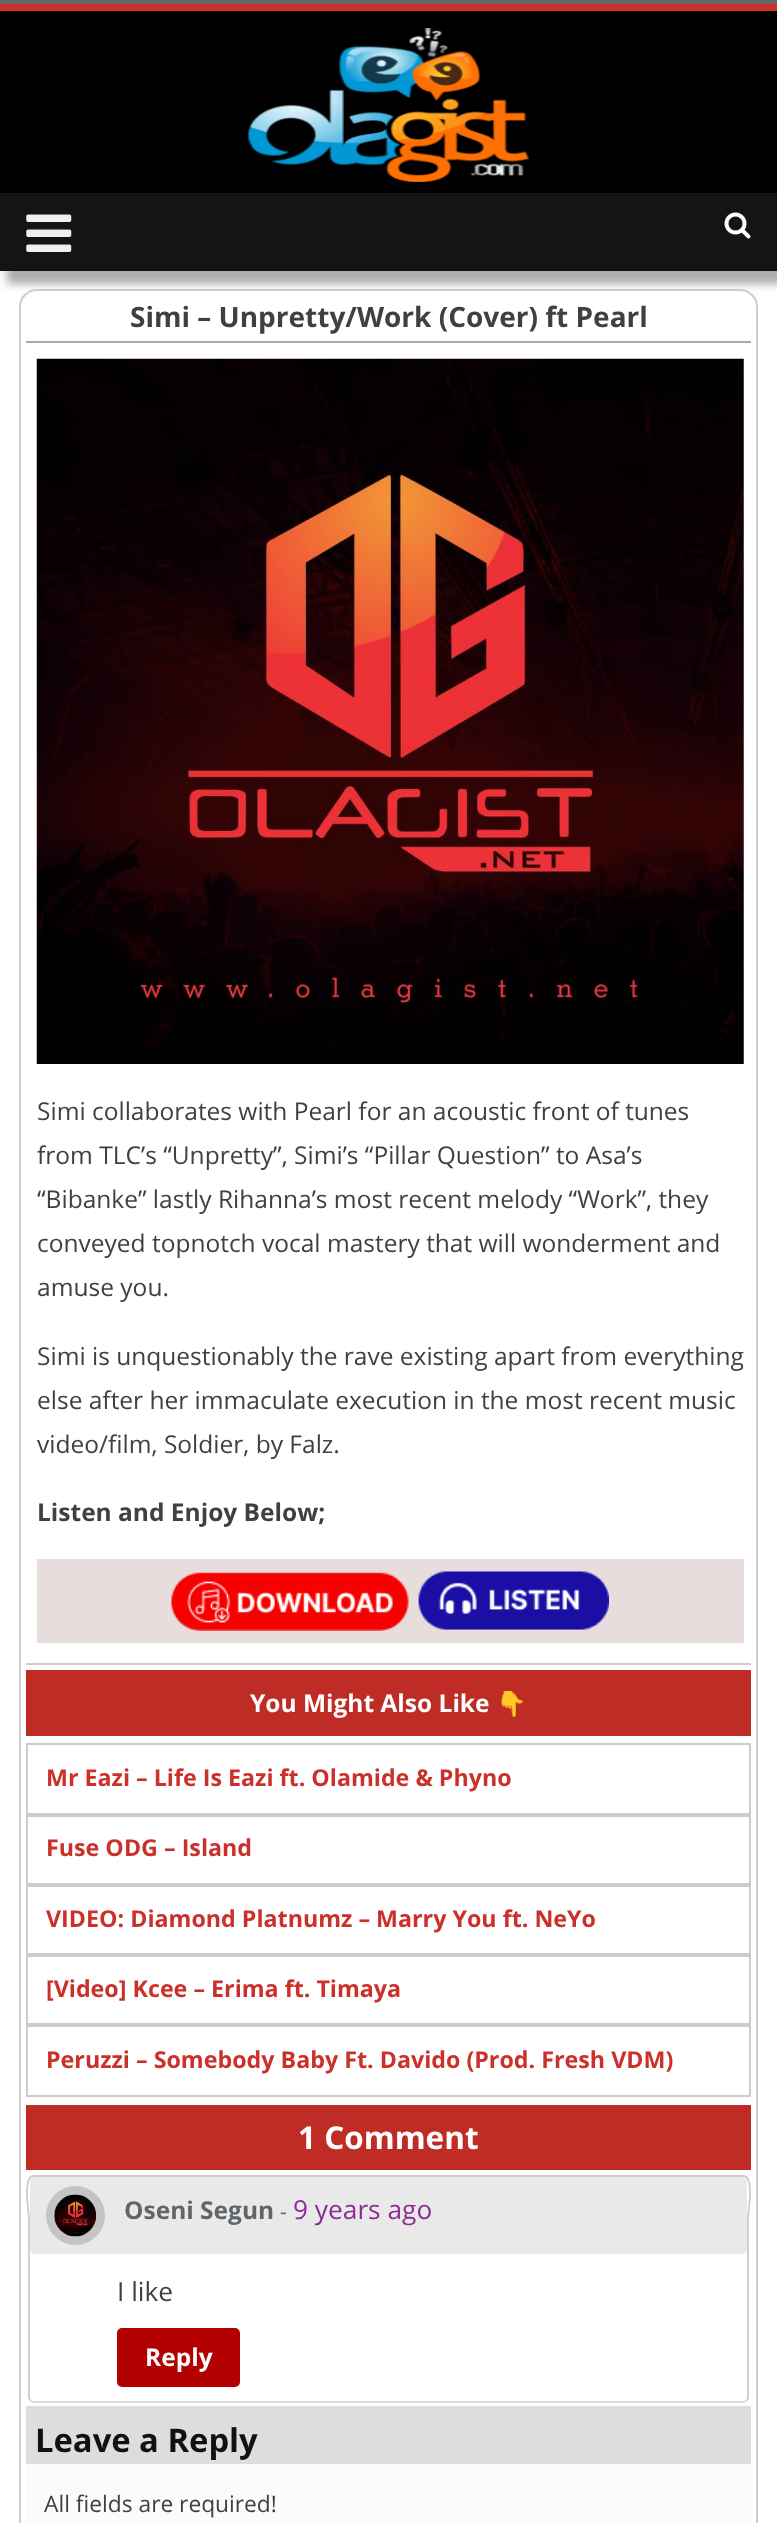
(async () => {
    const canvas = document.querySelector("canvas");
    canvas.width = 777;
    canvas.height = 2523;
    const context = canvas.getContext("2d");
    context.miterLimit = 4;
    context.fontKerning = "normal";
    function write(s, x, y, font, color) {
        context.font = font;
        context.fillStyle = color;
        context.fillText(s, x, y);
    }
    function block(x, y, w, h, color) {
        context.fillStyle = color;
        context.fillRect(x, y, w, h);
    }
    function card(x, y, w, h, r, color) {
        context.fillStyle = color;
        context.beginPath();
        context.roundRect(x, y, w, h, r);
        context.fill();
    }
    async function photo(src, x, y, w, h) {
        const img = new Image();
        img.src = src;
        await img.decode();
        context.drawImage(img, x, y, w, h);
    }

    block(0, 0, 777, 2523, "rgb(102, 102, 102)");
    block(0, 11, 777, 182, "rgb(0, 0, 0)");
    block(0, 4, 777, 7, "rgb(203, 49, 42)");
    await photo("media/1.png", 248, 28, 281, 154);
    block(0, 271, 777, 2252, "rgb(255, 255, 255)");
    context.fillStyle = "rgba(0, 0, 0, 0.32)";
    context.filter = "blur(4.5px)";
    context.beginPath();
    context.rect(7, 205, 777, 79);
    context.fill();
    context.filter = "none";
    block(0, 193, 777, 78, "rgb(20, 20, 20)");
    await photo("media/2.png", 26, 214, 46, 38);
    await photo("media/3.png", 724, 212, 27, 27);
    context.beginPath();
    context.moveTo(37, 290);
    context.lineTo(740, 290);
    context.bezierCurveTo(749.5, 290, 757, 297.5, 757, 307);
    context.lineTo(757, 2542);
    context.lineTo(20, 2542);
    context.lineTo(20, 307);
    context.bezierCurveTo(20, 297.5, 27.5, 290, 37, 290);
    context.closePath();
    context.strokeStyle = "rgb(204, 204, 204)";
    context.lineWidth = 2;
    context.stroke();
    write("Simi – Unpretty/Work (Cover) ft Pearl", 130, 327, "bold 28px Open Sans", "rgb(64, 64, 64)");
    block(26, 341, 725, 2, "rgb(170, 170, 170)");
    block(26, 1663, 725, 2, "rgb(206, 206, 206)");
    await photo("media/4.png", 36, 358, 708, 706);
    write("Simi collaborates with Pearl for an acoustic front of tunes", 37, 1120, "24.5px Open Sans", "rgb(64, 64, 64)");
    write("from TLC’s “Unpretty”, Simi’s “Pillar Question” to Asa’s", 37, 1164, "24.5px Open Sans", "rgb(64, 64, 64)");
    write("“Bibanke” lastly Rihanna’s most recent melody “Work”, they", 37, 1208, "24.5px Open Sans", "rgb(64, 64, 64)");
    write("conveyed topnotch vocal mastery that will wonderment and", 37, 1252, "24.5px Open Sans", "rgb(64, 64, 64)");
    write("amuse you.", 37, 1296, "24.5px Open Sans", "rgb(64, 64, 64)");
    write("Simi is unquestionably the rave existing apart from everything", 37, 1365, "24.5px Open Sans", "rgb(64, 64, 64)");
    write("else after her immaculate execution in the most recent music", 37, 1409, "24.5px Open Sans", "rgb(64, 64, 64)");
    write("video/film, Soldier, by Falz.", 37, 1453, "24.5px Open Sans", "rgb(64, 64, 64)");
    write("Listen and Enjoy Below;", 37, 1521, "bold 24.5px Open Sans", "rgb(64, 64, 64)");
    block(37, 1559, 707, 84, "rgb(232, 221, 221)");
    await photo("media/5.png", 171, 1571, 438, 60);
    block(26, 1670, 725, 66, "rgb(191, 44, 38)");
    write("You Might Also Like", 250, 1712, "bold 24.5px Open Sans", "rgb(255, 255, 255)");
    write("👇", 496, 1712, "bold 24.5px Noto Color Emoji", "rgb(255, 255, 255)");
    context.strokeRect(27, 1744, 723, 70);
    write("Mr Eazi – Life Is Eazi ft. Olamide & Phyno", 46, 1786, "bold 23.25px Open Sans", "rgb(203, 49, 42)");
    context.strokeRect(27, 1816, 723, 68);
    write("Fuse ODG – Island", 46, 1856, "bold 23.25px Open Sans", "rgb(203, 49, 42)");
    context.strokeRect(27, 1886, 723, 68);
    write("VIDEO: Diamond Platnumz – Marry You ft. NeYo", 46, 1927, "bold 23.25px Open Sans", "rgb(203, 49, 42)");
    context.strokeRect(27, 1956, 723, 68);
    write("[Video] Kcee – Erima ft. Timaya", 46, 1997, "bold 23.25px Open Sans", "rgb(203, 49, 42)");
    context.strokeRect(27, 2026, 723, 70);
    write("Peruzzi – Somebody Baby Ft. Davido (Prod. Fresh VDM)", 46, 2068, "bold 23.25px Open Sans", "rgb(203, 49, 42)");
    block(26, 2105, 725, 65, "rgb(191, 44, 38)");
    write("1 Comment", 298, 2149, "bold 31.5px Open Sans", "rgb(255, 255, 255)");
    context.beginPath();
    context.moveTo(747, 2400.5);
    context.lineTo(744, 2402);
    context.lineTo(33, 2402);
    context.lineTo(30, 2400.5);
    context.strokeStyle = "rgb(221, 221, 221)";
    context.lineWidth = 1.8;
    context.stroke();
    context.beginPath();
    context.moveTo(30, 2400.5);
    context.lineTo(29, 2397.5);
    context.lineTo(29, 2216.5);
    context.bezierCurveTo(29, 2216, 22.5, 2176, 33, 2176);
    context.lineTo(744, 2176);
    context.bezierCurveTo(754.5, 2176, 748, 2216, 748, 2216.5);
    context.lineTo(748, 2397.5);
    context.lineTo(747, 2400.5);
    context.strokeStyle = "rgb(204, 204, 204)";
    context.stroke();
    card(30, 2177, 717, 77, 5, "rgb(233, 233, 233)");
    context.fillStyle = "rgb(196, 196, 196)";
    context.beginPath();
    context.arc(75.5, 2215.5, 29.5, 0, Math.PI * 2);
    context.fill();
    await photo("media/6.png", 54, 2194, 43, 43);
    write("Oseni Segun", 124, 2219, "bold 24.5px Open Sans", "rgb(96, 101, 105)");
    write("-", 280, 2219, "21px Open Sans", "rgb(96, 101, 105)");
    write("9 years ago", 293, 2219, "26.25px Open Sans", "rgb(140, 42, 150)");
    write("I like", 117, 2301, "26.25px Open Sans", "rgb(64, 64, 64)");
    card(117, 2328, 123, 59, 5, "rgb(179, 0, 0)");
    write("Reply", 145, 2366, "bold 24.5px Open Sans", "rgb(255, 255, 255)");
    block(26, 2464, 725, 59, "rgb(251, 251, 251)");
    block(26, 2406, 725, 58, "rgb(221, 221, 221)");
    write("Leave a Reply", 35, 2452, "bold 32.75px Open Sans", "rgb(17, 17, 17)");
    write("All fields are required!", 44, 2512, "22.75px Open Sans", "rgb(64, 64, 64)");
})();
